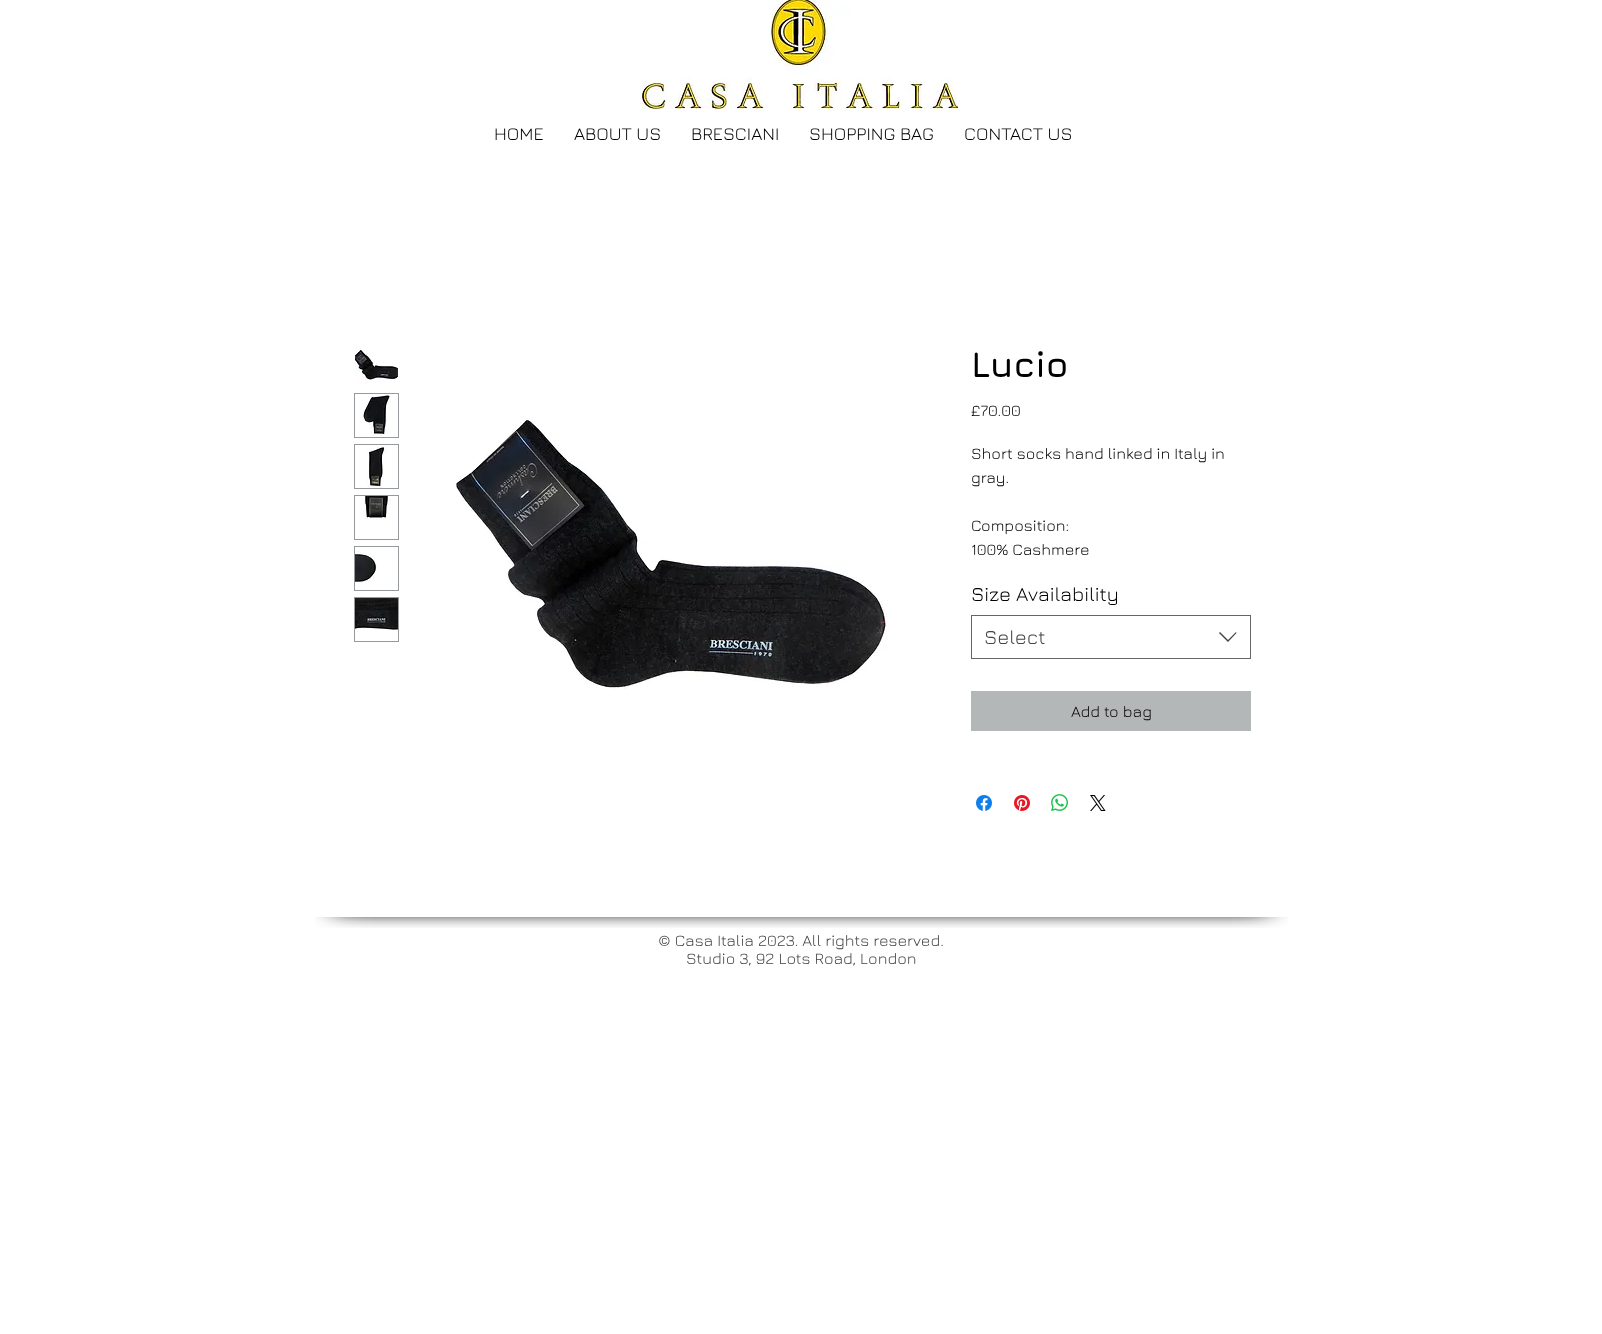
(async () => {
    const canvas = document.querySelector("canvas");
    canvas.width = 1602;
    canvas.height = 1334;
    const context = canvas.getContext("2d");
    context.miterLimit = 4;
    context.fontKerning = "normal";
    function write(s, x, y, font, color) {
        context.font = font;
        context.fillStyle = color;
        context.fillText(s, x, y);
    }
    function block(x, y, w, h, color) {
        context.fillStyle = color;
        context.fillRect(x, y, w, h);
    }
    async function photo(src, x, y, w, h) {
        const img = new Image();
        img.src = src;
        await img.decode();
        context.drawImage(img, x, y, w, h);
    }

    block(0, 0, 1602, 1334, "rgb(255, 255, 255)");
    await photo("media/1.png", 642, 0, 316, 109);
    write("HOME", 494, 140, "18px Jura", "rgb(0, 0, 0)");
    write("ABOUT US", 574, 140, "18px Jura", "rgb(0, 0, 0)");
    write("BRESCIANI", 691, 140, "18px Jura", "rgb(0, 0, 0)");
    write("SHOPPING BAG", 809, 140, "18px Jura", "rgb(0, 0, 0)");
    write("CONTACT US", 964, 140, "18px Jura", "rgb(0, 0, 0)");
    await photo("media/2.png", 355, 348, 43, 35);
    context.strokeStyle = "rgb(150, 154, 156)";
    context.strokeRect(354.5, 393.5, 44, 44);
    await photo("media/3.png", 363, 394, 28, 40);
    context.strokeRect(354.5, 444.5, 44, 44);
    await photo("media/4.png", 367, 445, 20, 43);
    context.strokeRect(354.5, 495.5, 44, 44);
    await photo("media/5.png", 363, 496, 28, 24);
    context.strokeRect(354.5, 546.5, 44, 44);
    await photo("media/6.png", 355, 551, 24, 32);
    context.strokeRect(354.5, 597.5, 44, 44);
    await photo("media/7.png", 355, 598, 43, 32);
    await photo("media/8.png", 455, 418, 434, 271);
    write("Lucio", 971, 377, "bold 36px Jura", "rgb(0, 0, 0)");
    write("£70.00", 971, 416, "16px Jura", "rgb(0, 0, 0)");
    write("Short socks hand linked in Italy in", 971, 459, "16px Jura", "rgb(0, 0, 0)");
    write("gray.", 971, 483, "16px Jura", "rgb(0, 0, 0)");
    write("Composition:", 971, 531, "16px Jura", "rgb(0, 0, 0)");
    write("100% Cashmere", 971, 555, "16px Jura", "rgb(0, 0, 0)");
    write("Size Availability", 971, 601, "20px Jura", "rgb(0, 0, 0)");
    context.strokeStyle = "rgb(102, 102, 102)";
    context.strokeRect(971.5, 615.5, 279, 43);
    write("Select", 984, 644, "20px Jura", "rgb(68, 68, 68)");
    context.beginPath();
    context.moveTo(1236, 632);
    context.lineTo(1236.5, 633);
    context.lineTo(1228, 642);
    context.lineTo(1219, 633);
    context.lineTo(1220, 632);
    context.lineTo(1228, 640);
    context.closePath();
    context.fill("evenodd");
    block(971, 691, 280, 40, "rgb(180, 183, 184)");
    write("Add to bag", 1071, 717, "16px Jura", "rgb(0, 0, 0)");
    await photo("media/9.png", 976, 795, 16, 16);
    await photo("media/10.png", 1014, 795, 16, 16);
    await photo("media/11.png", 1051, 794, 17, 17);
    await photo("media/12.png", 1090, 795, 16, 16);
    await photo("media/13.png", 315, 917, 97, 11);
    await photo("media/14.png", 412, 917, 779, 11);
    await photo("media/15.png", 1191, 917, 97, 11);
    write("© Casa Italia 2023. All rights reserved.", 658, 946, "16px Jura", "rgb(68, 68, 68)");
    write("Studio 3, 92 Lots Road, London", 686, 964, "16px Jura", "rgb(68, 68, 68)");
})();
